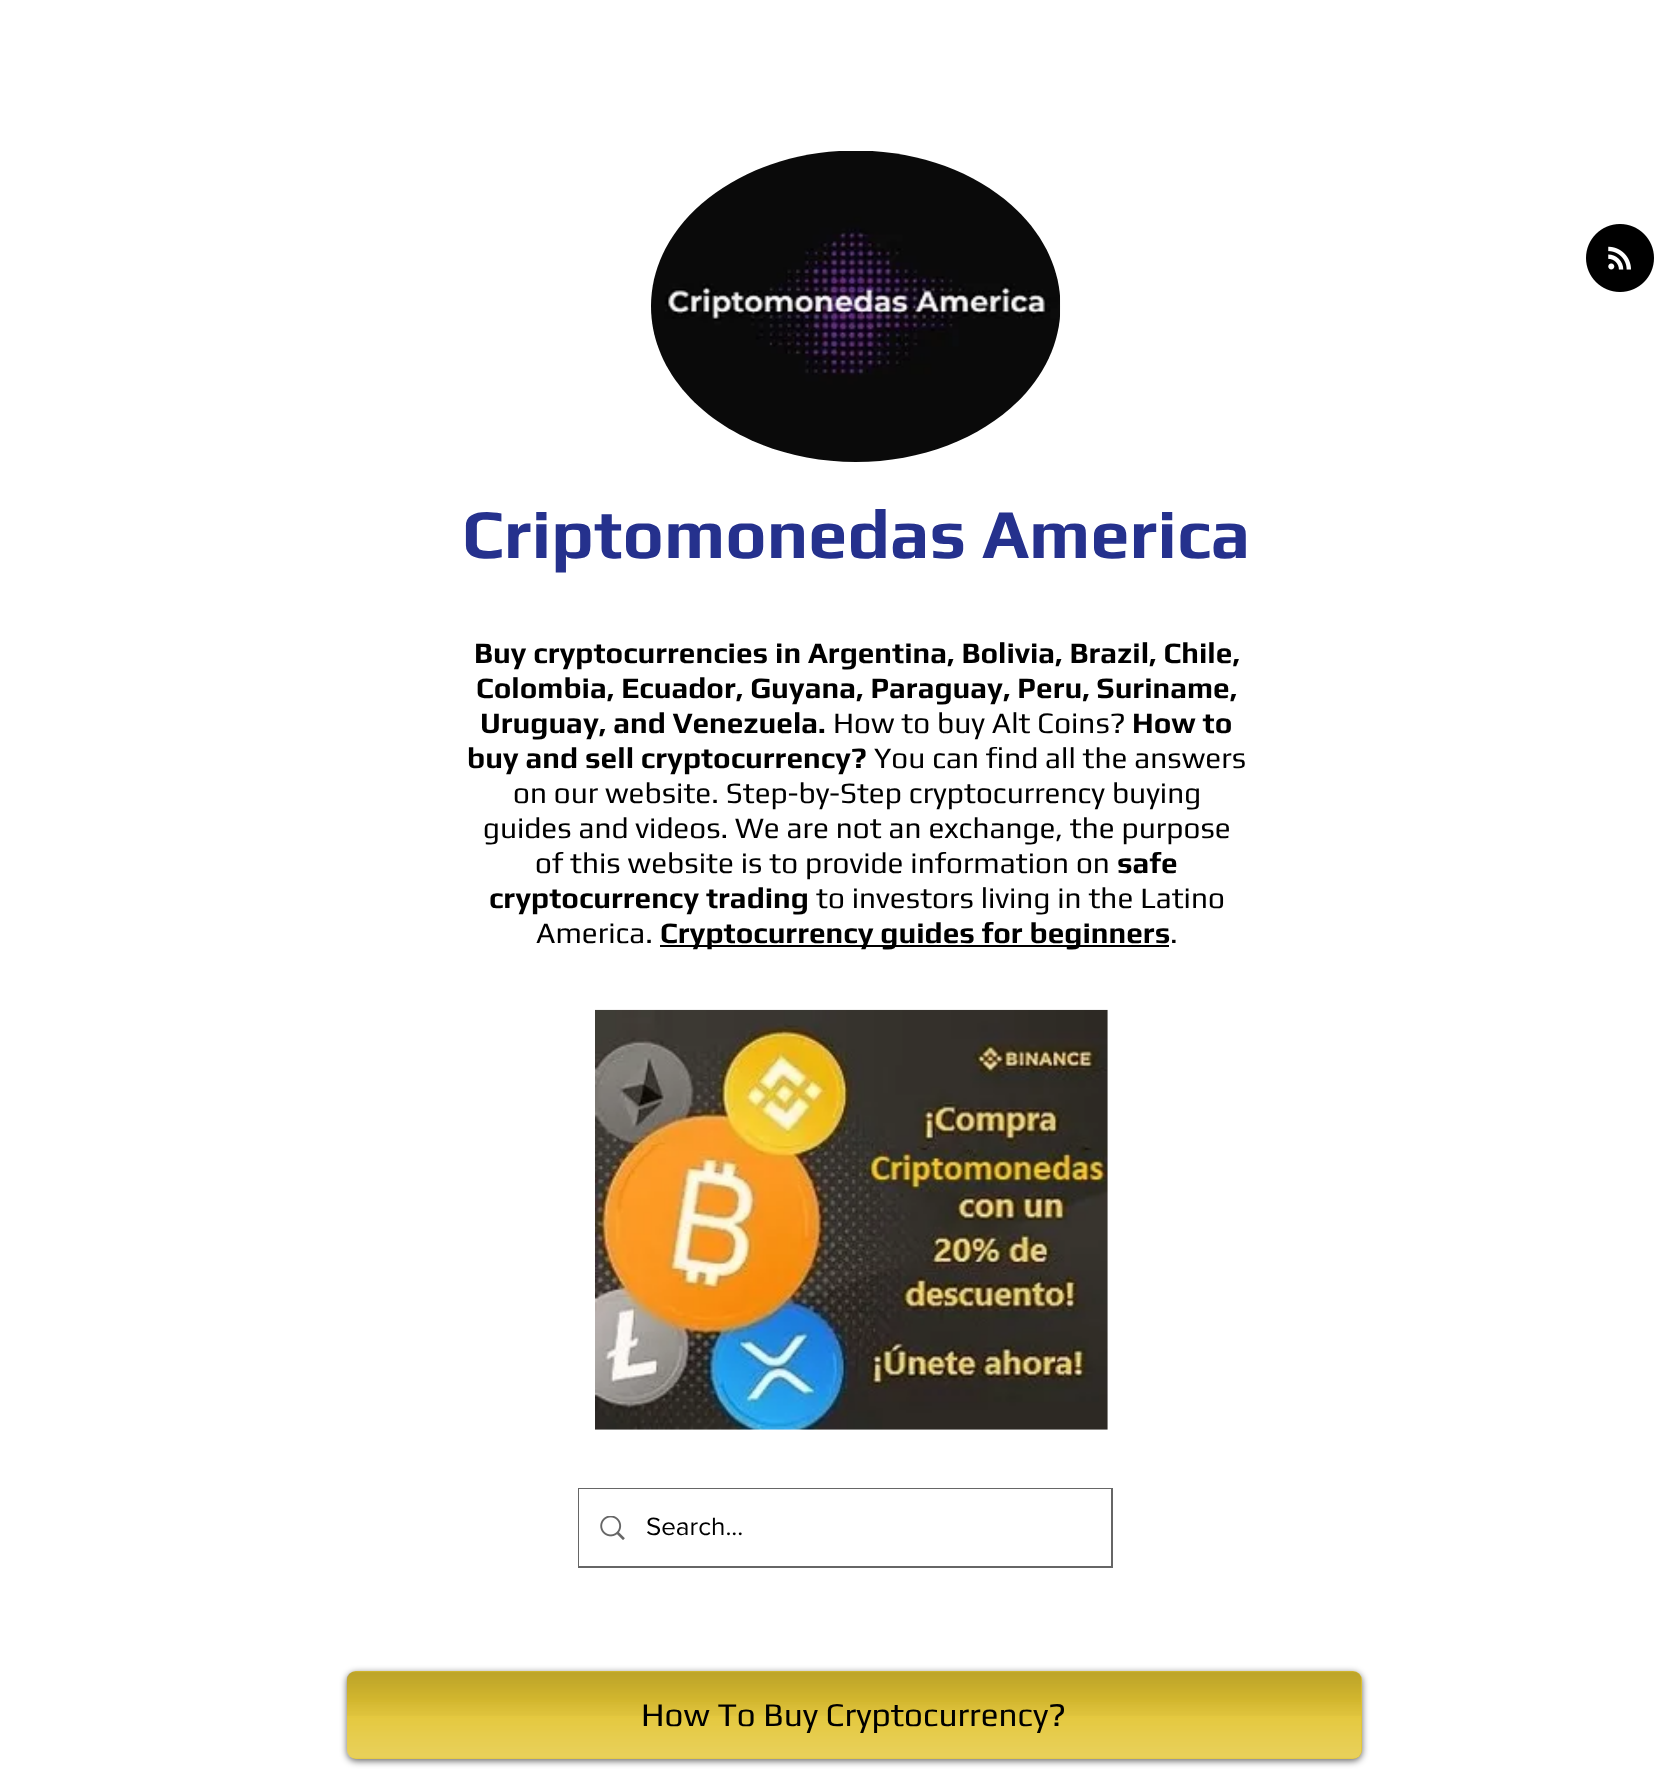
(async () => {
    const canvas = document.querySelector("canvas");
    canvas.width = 1668;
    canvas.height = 1783;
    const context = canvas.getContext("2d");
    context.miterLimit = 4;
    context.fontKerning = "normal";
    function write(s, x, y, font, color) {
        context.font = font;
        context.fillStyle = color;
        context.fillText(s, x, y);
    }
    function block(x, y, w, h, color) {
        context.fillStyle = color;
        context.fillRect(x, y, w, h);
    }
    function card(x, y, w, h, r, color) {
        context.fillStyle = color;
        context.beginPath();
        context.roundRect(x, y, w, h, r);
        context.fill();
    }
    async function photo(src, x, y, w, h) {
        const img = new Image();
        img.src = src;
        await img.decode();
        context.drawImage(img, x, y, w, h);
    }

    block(0, 0, 1668, 1783, "rgb(255, 255, 255)");
    await photo("media/1.png", 651, 151, 410, 311);
    await photo("media/2.png", 1586, 224, 68, 68);
    write("Criptomonedas America", 462, 558, "bold 70px Play", "rgb(37, 49, 141)");
    write("Buy cryptocurrencies in Argentina, Bolivia, Brazil, Chile,", 474, 663, "bold 29.75px Play", "rgb(0, 0, 0)");
    write("Colombia, Ecuador, Guyana, Paraguay, Peru, Suriname,", 476, 698, "bold 29.75px Play", "rgb(0, 0, 0)");
    write("Uruguay, and Venezuela.", 480, 733, "bold 29.75px Play", "rgb(0, 0, 0)");
    write("How to buy Alt Coins?", 833, 733, "29.75px Play", "rgb(0, 0, 0)");
    write("How to", 1132, 733, "bold 29.75px Play", "rgb(0, 0, 0)");
    write("buy and sell cryptocurrency?", 467, 768, "bold 29.75px Play", "rgb(0, 0, 0)");
    write("You can find all the answers", 874, 768, "29.75px Play", "rgb(0, 0, 0)");
    write("on our website. Step-by-Step cryptocurrency buying", 513, 803, "29.75px Play", "rgb(0, 0, 0)");
    write("guides and videos. We are not an exchange, the purpose", 483, 838, "29.75px Play", "rgb(0, 0, 0)");
    write("of this website is to provide information on", 535, 873, "29.75px Play", "rgb(0, 0, 0)");
    write("safe", 1117, 873, "bold 29.75px Play", "rgb(0, 0, 0)");
    write("cryptocurrency trading", 489, 908, "bold 29.75px Play", "rgb(0, 0, 0)");
    write("to investors living in the Latino", 816, 908, "29.75px Play", "rgb(0, 0, 0)");
    write("America.", 536, 943, "29.75px Play", "rgb(0, 0, 0)");
    block(660, 945, 509, 2, "rgb(0, 0, 0)");
    write("Cryptocurrency guides for beginners", 660, 943, "bold 29.75px Play", "rgb(0, 0, 0)");
    write(".", 1170, 943, "29.75px Play", "rgb(0, 0, 0)");
    await photo("media/3.png", 595, 1009, 513, 421);
    context.strokeStyle = "rgb(102, 102, 102)";
    context.lineWidth = 2;
    context.strokeRect(579, 1489, 533, 78);
    block(579, 1489, 532, 77, "rgb(255, 255, 255)");
    await photo("media/4.png", 600, 1516, 25, 24);
    write("Search...", 646, 1535, "26px 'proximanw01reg'", "rgb(0, 0, 0)");
    context.fillStyle = "rgba(0, 0, 0, 0.6)";
    context.filter = "blur(3.5px)";
    context.beginPath();
    context.roundRect(347, 1673, 1015, 88, 9);
    context.fill();
    context.filter = "none";
    card(347, 1671, 1015, 88, 9, "rgb(227, 197, 50)");
    await photo("media/5.png", 346, 1671, 1016, 45);
    await photo("media/6.png", 347, 1702, 1015, 57);
    write("How To Buy Cryptocurrency?", 641, 1726, "33.25px Play", "rgb(0, 0, 0)");
})();
